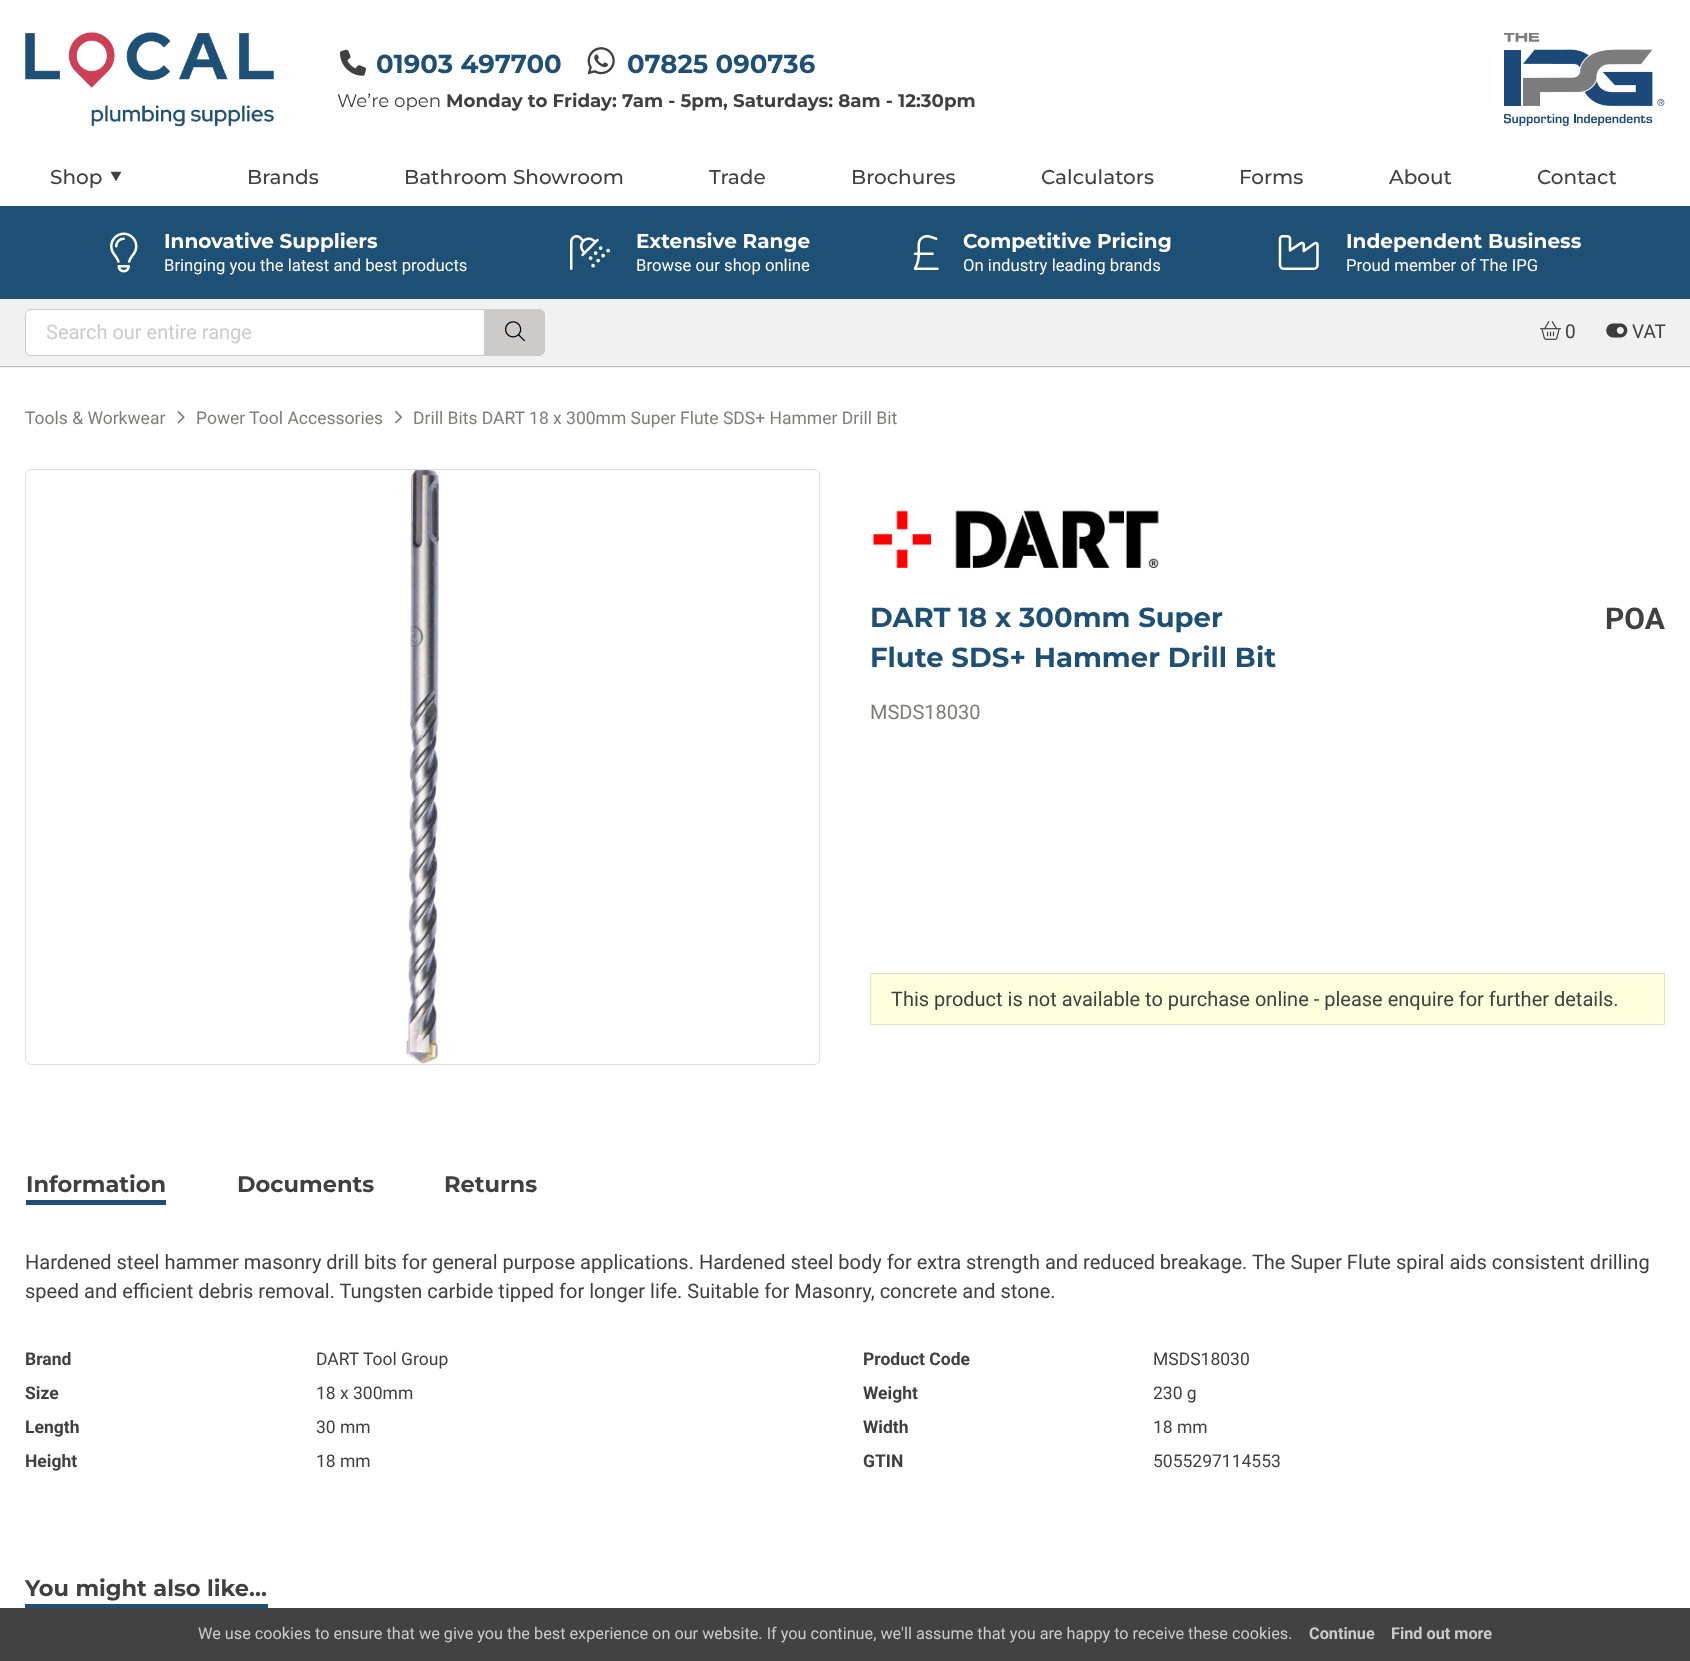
(async () => {
    const canvas = document.querySelector("canvas");
    canvas.width = 1690;
    canvas.height = 1661;
    const context = canvas.getContext("2d");
    context.miterLimit = 4;
    context.fontKerning = "normal";
    function write(s, x, y, font, color) {
        context.font = font;
        context.fillStyle = color;
        context.fillText(s, x, y);
    }
    function block(x, y, w, h, color) {
        context.fillStyle = color;
        context.fillRect(x, y, w, h);
    }
    async function photo(src, x, y, w, h) {
        const img = new Image();
        img.src = src;
        await img.decode();
        context.drawImage(img, x, y, w, h);
    }

    block(0, 0, 1690, 1661, "rgb(255, 255, 255)");
    await photo("media/1.png", 25, 32, 249, 95);
    await photo("media/2.png", 340, 49, 26, 27);
    write("01903 497700", 376, 73, "bold 26px Montserrat", "rgb(30, 80, 118)");
    await photo("media/3.png", 587, 47, 28, 28);
    write("07825 090736", 627, 73, "bold 26px Montserrat", "rgb(30, 80, 118)");
    write("We’re open", 337, 107, "18.25px Montserrat", "rgb(64, 64, 64)");
    write("Monday to Friday: 7am - 5pm, Saturdays: 8am - 12:30pm", 446, 107, "bold 18.25px Montserrat", "rgb(64, 64, 64)");
    await photo("media/4.png", 1504, 33, 161, 93);
    write("Shop", 50, 184, "500 20px Montserrat", "rgb(64, 64, 64)");
    write("⯆", 108, 184, "20px FreeSans", "rgb(64, 64, 64)");
    write("Brands", 247, 184, "500 20px Montserrat", "rgb(64, 64, 64)");
    write("Bathroom Showroom", 404, 184, "500 20px Montserrat", "rgb(64, 64, 64)");
    write("Trade", 709, 184, "500 20px Montserrat", "rgb(64, 64, 64)");
    write("Brochures", 851, 184, "500 20px Montserrat", "rgb(64, 64, 64)");
    write("Calculators", 1041, 184, "500 20px Montserrat", "rgb(64, 64, 64)");
    write("Forms", 1239, 184, "500 20px Montserrat", "rgb(64, 64, 64)");
    write("About", 1389, 184, "500 20px Montserrat", "rgb(64, 64, 64)");
    write("Contact", 1537, 184, "500 20px Montserrat", "rgb(64, 64, 64)");
    block(0, 206, 1690, 93, "rgb(30, 80, 118)");
    await photo("media/5.png", 110, 232, 28, 41);
    write("Innovative Suppliers", 164, 248, "bold 20px Montserrat", "rgb(255, 255, 255)");
    write("Bringing you the latest and best products", 164, 271, "16.7px Roboto", "rgb(255, 255, 255)");
    await photo("media/6.png", 570, 235, 40, 35);
    write("Extensive Range", 636, 248, "bold 20px Montserrat", "rgb(255, 255, 255)");
    write("Browse our shop online", 636, 271, "16.7px Roboto", "rgb(255, 255, 255)");
    await photo("media/7.png", 913, 235, 26, 35);
    write("Competitive Pricing", 963, 248, "bold 20px Montserrat", "rgb(255, 255, 255)");
    write("On industry leading brands", 963, 271, "16.7px Roboto", "rgb(255, 255, 255)");
    await photo("media/8.png", 1278, 235, 41, 35);
    write("Independent Business", 1346, 248, "bold 20px Montserrat", "rgb(255, 255, 255)");
    write("Proud member of The IPG", 1346, 271, "16.7px Roboto", "rgb(255, 255, 255)");
    block(0, 299, 1690, 69, "rgb(241, 241, 241)");
    block(0, 366, 1690, 1, "rgb(185, 185, 185)");
    context.fillStyle = "rgb(255, 255, 255)";
    context.beginPath();
    context.roundRect(25.5, 309.5, 459, 46, [5.5, 0, 0, 5.5]);
    context.fill();
    context.strokeStyle = "rgb(204, 203, 202)";
    context.stroke();
    write("Search our entire range", 46, 339, "20px Roboto", "rgb(204, 203, 202)");
    context.beginPath();
    context.roundRect(485.5, 309.5, 59, 46, [0, 5.5, 5.5, 0]);
    context.fill();
    context.stroke();
    await photo("media/9.png", 505, 321, 20, 21);
    await photo("media/10.png", 1540, 321, 21, 19);
    write("0", 1565, 338, "19px Roboto", "rgb(64, 64, 64)");
    await photo("media/11.png", 1606, 323, 22, 15);
    write("VAT", 1632, 338, "19px Roboto", "rgb(64, 64, 64)");
    write("Tools & Workwear", 25, 424, "17.5px Roboto", "rgb(126, 125, 122)");
    await photo("media/12.png", 177, 411, 8, 13);
    write("Power Tool Accessories", 196, 424, "17.5px Roboto", "rgb(126, 125, 122)");
    await photo("media/13.png", 395, 411, 7, 13);
    write("Drill Bits DART 18 x 300mm Super Flute SDS+ Hammer Drill Bit", 413, 424, "17.5px Roboto", "rgb(126, 125, 122)");
    context.beginPath();
    context.roundRect(25.5, 469.5, 794, 595, 5.5);
    context.strokeStyle = "rgb(223, 223, 223)";
    context.stroke();
    await photo("media/14.png", 404, 470, 37, 594);
    await photo("media/15.png", 870, 509, 289, 60);
    write("DART 18 x 300mm Super", 870, 627, "bold 27.5px Montserrat", "rgb(30, 80, 118)");
    write("Flute SDS+ Hammer Drill Bit", 870, 667, "bold 27.5px Montserrat", "rgb(30, 80, 118)");
    write("MSDS18030", 870, 719, "20px Roboto", "rgb(126, 125, 122)");
    write("POA", 1605, 629, "bold 30px Roboto", "rgb(64, 64, 64)");
    context.fillStyle = "rgb(255, 255, 221)";
    context.beginPath();
    context.rect(870.5, 973.5, 794, 51);
    context.fill();
    context.strokeStyle = "rgb(223, 223, 198)";
    context.stroke();
    write("This product is not available to purchase online - please enquire for further details.", 891, 1006, "20px Roboto", "rgb(64, 64, 64)");
    write("Information", 26, 1192, "bold 22.5px Montserrat", "rgb(64, 64, 64)");
    block(26, 1200, 140, 5, "rgb(30, 80, 118)");
    write("Documents", 237, 1192, "bold 22.5px Montserrat", "rgb(64, 64, 64)");
    write("Returns", 444, 1192, "bold 22.5px Montserrat", "rgb(64, 64, 64)");
    write("Hardened steel hammer masonry drill bits for general purpose applications. Hardened steel body for extra strength and reduced breakage. The Super Flute spiral aids consistent drilling", 25, 1269, "20px Roboto", "rgb(64, 64, 64)");
    write("speed and efficient debris removal. Tungsten carbide tipped for longer life. Suitable for Masonry, concrete and stone.", 25, 1298, "20px Roboto", "rgb(64, 64, 64)");
    write("Brand", 25, 1365, "bold 17.5px Roboto", "rgb(64, 64, 64)");
    write("DART Tool Group", 316, 1365, "17.5px Roboto", "rgb(64, 64, 64)");
    write("Product Code", 863, 1365, "bold 17.5px Roboto", "rgb(64, 64, 64)");
    write("MSDS18030", 1153, 1365, "17.5px Roboto", "rgb(64, 64, 64)");
    write("Size", 25, 1399, "bold 17.5px Roboto", "rgb(64, 64, 64)");
    write("18 x 300mm", 316, 1399, "17.5px Roboto", "rgb(64, 64, 64)");
    write("Weight", 863, 1399, "bold 17.5px Roboto", "rgb(64, 64, 64)");
    write("230 g", 1153, 1399, "17.5px Roboto", "rgb(64, 64, 64)");
    write("Length", 25, 1433, "bold 17.5px Roboto", "rgb(64, 64, 64)");
    write("30 mm", 316, 1433, "17.5px Roboto", "rgb(64, 64, 64)");
    write("Width", 863, 1433, "bold 17.5px Roboto", "rgb(64, 64, 64)");
    write("18 mm", 1153, 1433, "17.5px Roboto", "rgb(64, 64, 64)");
    write("Height", 25, 1467, "bold 17.5px Roboto", "rgb(64, 64, 64)");
    write("18 mm", 316, 1467, "17.5px Roboto", "rgb(64, 64, 64)");
    write("GTIN", 863, 1467, "bold 17.5px Roboto", "rgb(64, 64, 64)");
    write("5055297114553", 1153, 1467, "17.5px Roboto", "rgb(64, 64, 64)");
    write("You might also like…", 25, 1596, "bold 22.5px Montserrat", "rgb(64, 64, 64)");
    block(25, 1604, 243, 4, "rgb(30, 80, 118)");
    block(0, 1608, 1690, 53, "rgb(66, 66, 66)");
    write("We use cookies to ensure that we give you the best experience on our website. If you continue, we'll assume that you are happy to receive these cookies.", 198, 1639, "16.25px Roboto", "rgb(204, 203, 202)");
    write("Continue", 1309, 1639, "bold 16.25px Roboto", "rgb(204, 203, 202)");
    write("Find out more", 1391, 1639, "bold 16.25px Roboto", "rgb(204, 203, 202)");
})();
